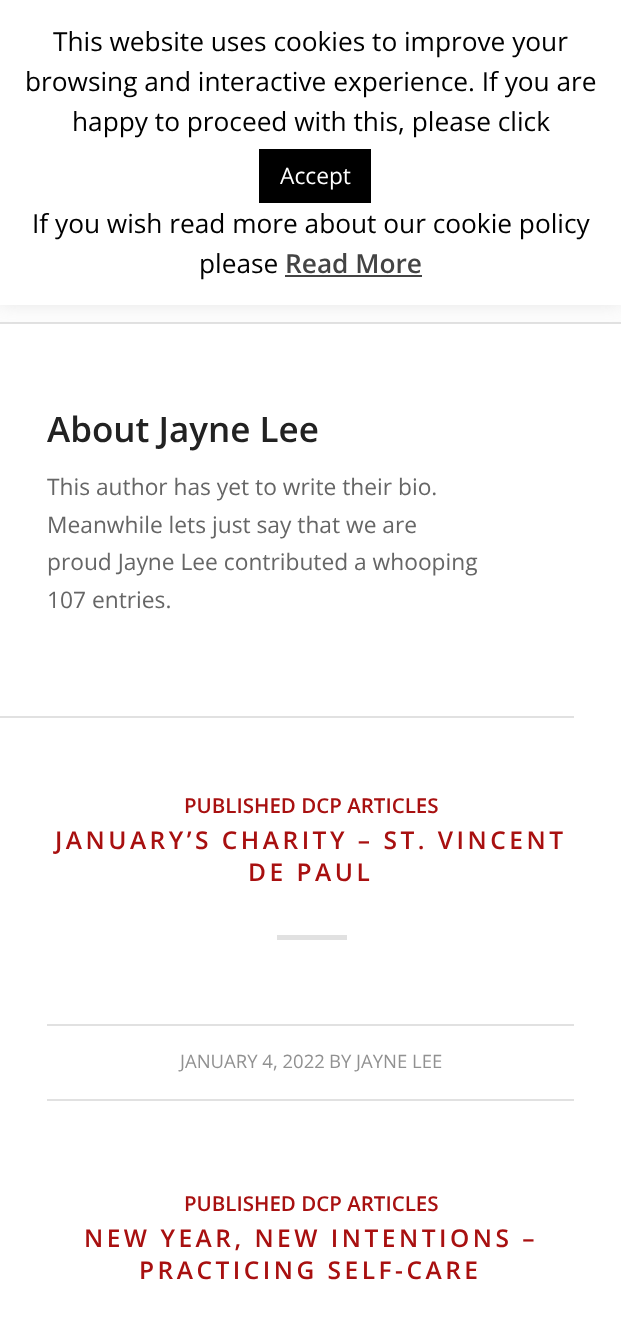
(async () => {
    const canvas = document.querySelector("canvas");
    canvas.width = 621;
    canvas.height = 1327;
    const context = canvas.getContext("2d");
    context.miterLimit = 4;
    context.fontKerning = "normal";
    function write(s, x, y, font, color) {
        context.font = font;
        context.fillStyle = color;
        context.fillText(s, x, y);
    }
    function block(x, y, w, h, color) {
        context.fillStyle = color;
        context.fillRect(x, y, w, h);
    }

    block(0, 0, 621, 1327, "rgb(255, 255, 255)");
    block(0, 305, 621, 17, "rgb(252, 252, 252)");
    block(0, 322, 621, 2, "rgb(225, 225, 225)");
    context.fillStyle = "rgba(172, 171, 171, 0.3)";
    context.filter = "blur(9px)";
    context.beginPath();
    context.rect(0, -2, 621, 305);
    context.fill();
    context.filter = "none";
    block(0, 0, 621, 305, "rgb(255, 255, 255)");
    write("This website uses cookies to improve your", 53, 51, "26.25px Open Sans", "rgb(0, 0, 0)");
    write("browsing and interactive experience. If you are", 25, 91, "26.25px Open Sans", "rgb(0, 0, 0)");
    write("happy to proceed with this, please click", 72, 131, "26.25px Open Sans", "rgb(0, 0, 0)");
    block(259, 149, 112, 54, "rgb(0, 0, 0)");
    write("Accept", 280, 184, "22.75px Open Sans", "rgb(255, 255, 255)");
    write("If you wish read more about our cookie policy", 32, 233, "26.25px Open Sans", "rgb(0, 0, 0)");
    write("please", 199, 273, "26.25px Open Sans", "rgb(0, 0, 0)");
    write("Read More", 285, 273, "600 26.25px Open Sans", "rgb(68, 68, 68)");
    block(285, 275, 137, 2, "rgb(68, 68, 68)");
    write("About Jayne Lee", 47, 442, "600 35px Open Sans", "rgb(34, 34, 34)");
    write("This author has yet to write their bio.", 47, 495, "22.75px Open Sans", "rgb(102, 102, 102)");
    write("Meanwhile lets just say that we are", 47, 533, "22.75px Open Sans", "rgb(102, 102, 102)");
    write("proud Jayne Lee contributed a whooping", 47, 570, "22.75px Open Sans", "rgb(102, 102, 102)");
    write("107 entries.", 47, 608, "22.75px Open Sans", "rgb(102, 102, 102)");
    block(0, 716, 574, 2, "rgb(225, 225, 225)");
    write("PUBLISHED DCP ARTICLES", 184, 813, "600 20.5px Open Sans", "rgb(168, 16, 16)");
    context.letterSpacing = "3.5px";
    write("JANUARY’S CHARITY – ST. VINCENT", 55, 849, "600 24.5px Open Sans", "rgb(168, 16, 16)");
    write("DE PAUL", 248, 881, "600 24.5px Open Sans", "rgb(168, 16, 16)");
    block(277, 935, 70, 5, "rgb(225, 225, 225)");
    block(47, 1024, 527, 2, "rgb(225, 225, 225)");
    block(47, 1099, 527, 2, "rgb(225, 225, 225)");
    context.letterSpacing = "0px";
    write("JANUARY 4, 2022", 180, 1068, "18.5px Open Sans", "rgb(145, 145, 145)");
    write("BY JAYNE LEE", 329, 1068, "18.5px Open Sans", "rgb(145, 145, 145)");
    write("PUBLISHED DCP ARTICLES", 184, 1211, "600 20.5px Open Sans", "rgb(168, 16, 16)");
    context.letterSpacing = "3.5px";
    write("NEW YEAR, NEW INTENTIONS –", 84, 1247, "600 24.5px Open Sans", "rgb(168, 16, 16)");
    write("PRACTICING SELF-CARE", 139, 1279, "600 24.5px Open Sans", "rgb(168, 16, 16)");
})();
